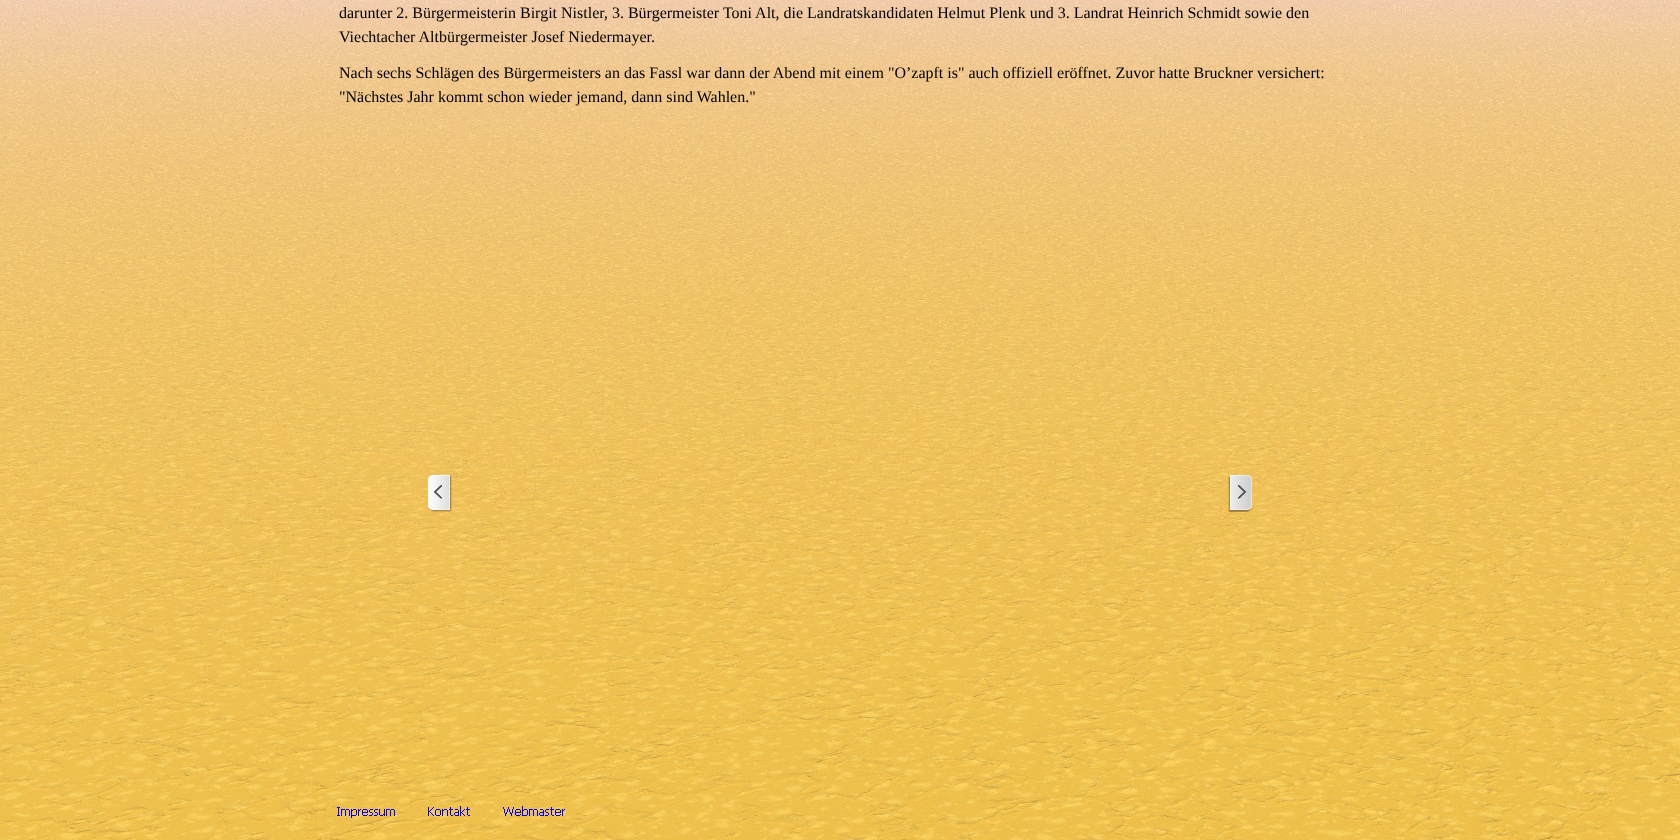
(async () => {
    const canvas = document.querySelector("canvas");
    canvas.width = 1680;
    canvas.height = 840;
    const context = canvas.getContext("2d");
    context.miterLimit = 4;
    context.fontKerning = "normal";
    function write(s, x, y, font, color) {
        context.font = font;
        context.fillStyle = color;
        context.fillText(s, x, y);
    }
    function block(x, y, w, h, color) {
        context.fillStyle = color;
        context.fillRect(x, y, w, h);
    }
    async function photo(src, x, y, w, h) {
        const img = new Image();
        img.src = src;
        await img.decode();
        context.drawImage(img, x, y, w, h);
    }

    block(0, 0, 1680, 840, "rgb(255, 255, 255)");
    await photo("media/1.png", 0, 0, 1680, 840);
    write("darunter 2. Bürgermeisterin Birgit Nistler, 3. Bürgermeister Toni Alt, die Landratskandidaten Helmut Plenk und 3. Landrat Heinrich Schmidt sowie den", 339, 18, "16px Liberation Serif", "rgb(0, 0, 0)");
    write("Viechtacher Altbürgermeister Josef Niedermayer.", 339, 42, "16px Liberation Serif", "rgb(0, 0, 0)");
    write("Nach sechs Schlägen des Bürgermeisters an das Fassl war dann der Abend mit einem \"O’zapft is\" auch offiziell eröffnet. Zuvor hatte Bruckner versichert:", 339, 78, "16px Liberation Serif", "rgb(0, 0, 0)");
    write("\"Nächstes Jahr kommt schon wieder jemand, dann sind Wahlen.\"", 339, 102, "16px Liberation Serif", "rgb(0, 0, 0)");
    await photo("media/2.png", 428, 475, 24, 37);
    await photo("media/3.png", 1228, 475, 24, 37);
    await photo("media/4.png", 337, 806, 228, 12);
})();
